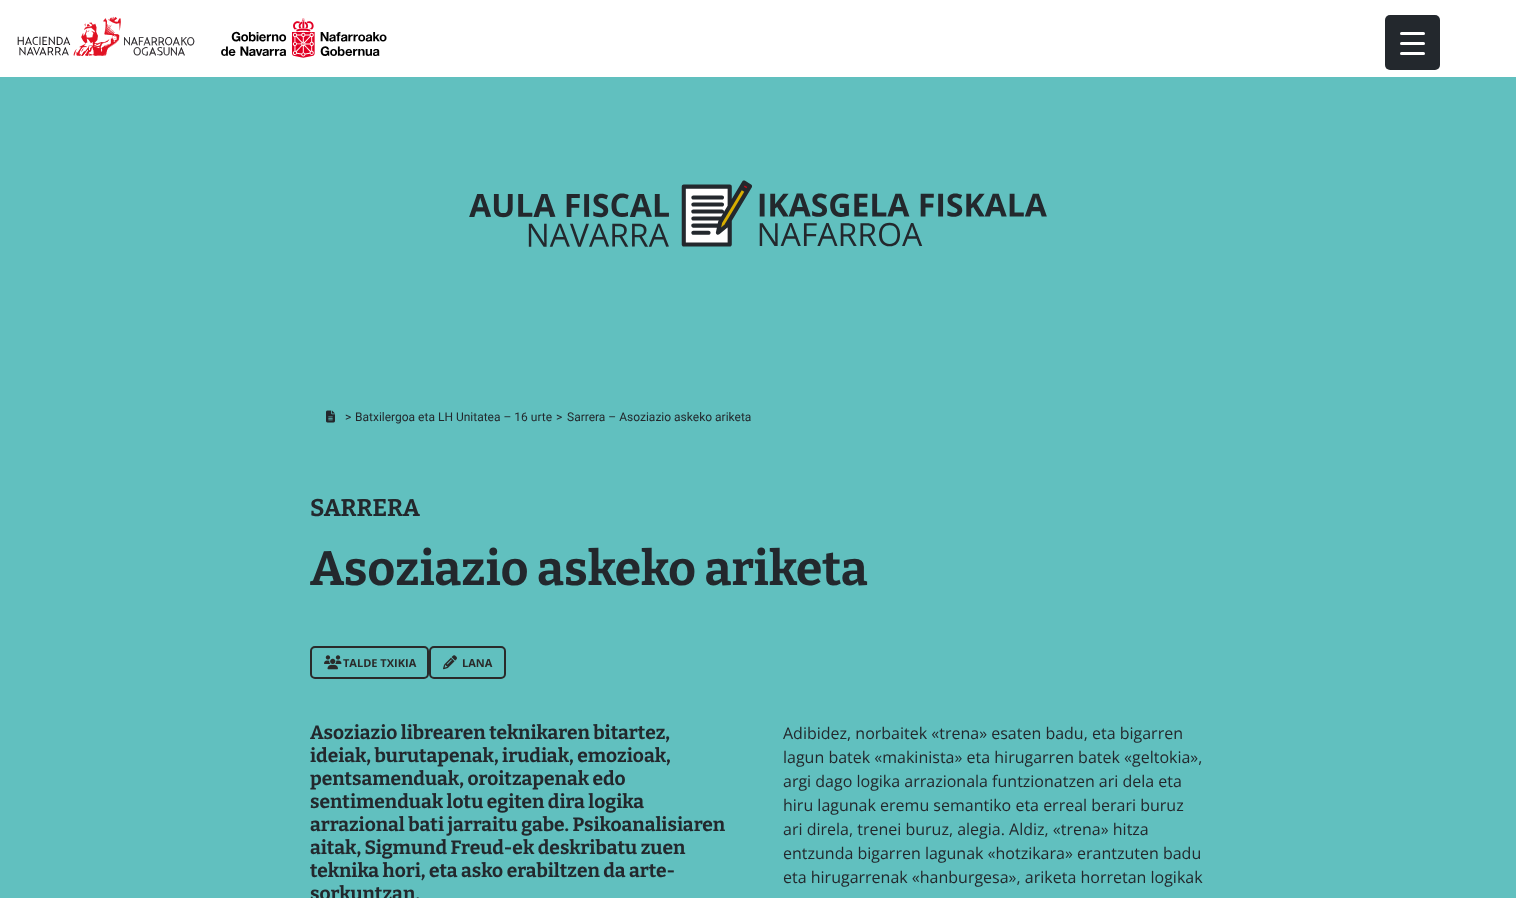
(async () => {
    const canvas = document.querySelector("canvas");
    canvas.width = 1516;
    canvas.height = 898;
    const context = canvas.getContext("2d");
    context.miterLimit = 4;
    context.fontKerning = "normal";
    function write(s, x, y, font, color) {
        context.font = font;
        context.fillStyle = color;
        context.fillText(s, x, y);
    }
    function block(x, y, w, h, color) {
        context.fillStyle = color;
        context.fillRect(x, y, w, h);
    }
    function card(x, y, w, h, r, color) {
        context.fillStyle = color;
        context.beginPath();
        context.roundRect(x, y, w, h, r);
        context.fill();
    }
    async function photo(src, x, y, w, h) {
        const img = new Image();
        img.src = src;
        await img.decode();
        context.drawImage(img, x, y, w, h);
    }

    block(0, 0, 1516, 898, "rgb(97, 192, 191)");
    block(0, 0, 1516, 77, "rgb(255, 255, 255)");
    card(1385, 15, 55, 55, 5, "rgb(35, 40, 45)");
    card(1400, 42, 25, 3, 1.5, "rgb(255, 255, 255)");
    card(1400, 32, 25, 3, 1.5, "rgb(255, 255, 255)");
    card(1400, 52, 25, 3, 1.5, "rgb(255, 255, 255)");
    await photo("media/1.png", 17, 16, 178, 40);
    await photo("media/2.png", 221, 18, 166, 40);
    await photo("media/3.png", 469, 180, 578, 67);
    await photo("media/4.png", 326, 410, 9, 13);
    write(">", 345, 421, "12px Roboto", "rgb(35, 40, 45)");
    write("Batxilergoa eta LH Unitatea – 16 urte", 355, 421, "12px Roboto", "rgb(35, 40, 45)");
    write(">", 556, 421, "12px Roboto", "rgb(35, 40, 45)");
    write("Sarrera – Asoziazio askeko ariketa", 567, 421, "12px Roboto", "rgb(35, 40, 45)");
    write("SARRERA", 310, 516, "bold 24px Bitter", "rgb(35, 40, 45)");
    write("Asoziazio askeko ariketa", 310, 585, "bold 48px Bitter", "rgb(35, 40, 45)");
    context.beginPath();
    context.roundRect(311, 647, 117, 31, 4);
    context.strokeStyle = "rgb(42, 42, 42)";
    context.lineWidth = 2;
    context.stroke();
    await photo("media/5.png", 324, 655, 18, 15);
    write("TALDE TXIKIA", 343, 667, "bold 11px Open Sans", "rgb(42, 42, 42)");
    context.beginPath();
    context.roundRect(430, 647, 75, 31, 4);
    context.stroke();
    await photo("media/6.png", 443, 655, 14, 15);
    write("LANA", 462, 667, "bold 11px Open Sans", "rgb(42, 42, 42)");
    write("Asoziazio librearen teknikaren bitartez,", 310, 739, "bold 19.2px Bitter", "rgb(35, 40, 45)");
    write("ideiak, burutapenak, irudiak, emozioak,", 310, 762, "bold 19.2px Bitter", "rgb(35, 40, 45)");
    write("pentsamenduak, oroitzapenak edo", 310, 785, "bold 19.2px Bitter", "rgb(35, 40, 45)");
    write("sentimenduak lotu egiten dira logika", 310, 808, "bold 19.2px Bitter", "rgb(35, 40, 45)");
    write("arrazional bati jarraitu gabe. Psikoanalisiaren", 310, 831, "bold 19.2px Bitter", "rgb(35, 40, 45)");
    write("aitak, Sigmund Freud-ek deskribatu zuen", 310, 854, "bold 19.2px Bitter", "rgb(35, 40, 45)");
    write("teknika hori, eta asko erabiltzen da arte-", 310, 877, "bold 19.2px Bitter", "rgb(35, 40, 45)");
    write("sorkuntzan.", 310, 900, "bold 19.2px Bitter", "rgb(35, 40, 45)");
    write("Adibidez, norbaitek «trena» esaten badu, eta bigarren", 783, 739, "16px Open Sans", "rgb(35, 40, 45)");
    write("lagun batek «makinista» eta hirugarren batek «geltokia»,", 783, 763, "16px Open Sans", "rgb(35, 40, 45)");
    write("argi dago logika arrazionala funtzionatzen ari dela eta", 783, 787, "16px Open Sans", "rgb(35, 40, 45)");
    write("hiru lagunak eremu semantiko eta erreal berari buruz", 783, 811, "16px Open Sans", "rgb(35, 40, 45)");
    write("ari direla, trenei buruz, alegia. Aldiz, «trena» hitza", 783, 835, "16px Open Sans", "rgb(35, 40, 45)");
    write("entzunda bigarren lagunak «hotzikara» erantzuten badu", 783, 859, "16px Open Sans", "rgb(35, 40, 45)");
    write("eta hirugarrenak «hanburgesa», ariketa horretan logikak", 783, 883, "16px Open Sans", "rgb(35, 40, 45)");
})();
